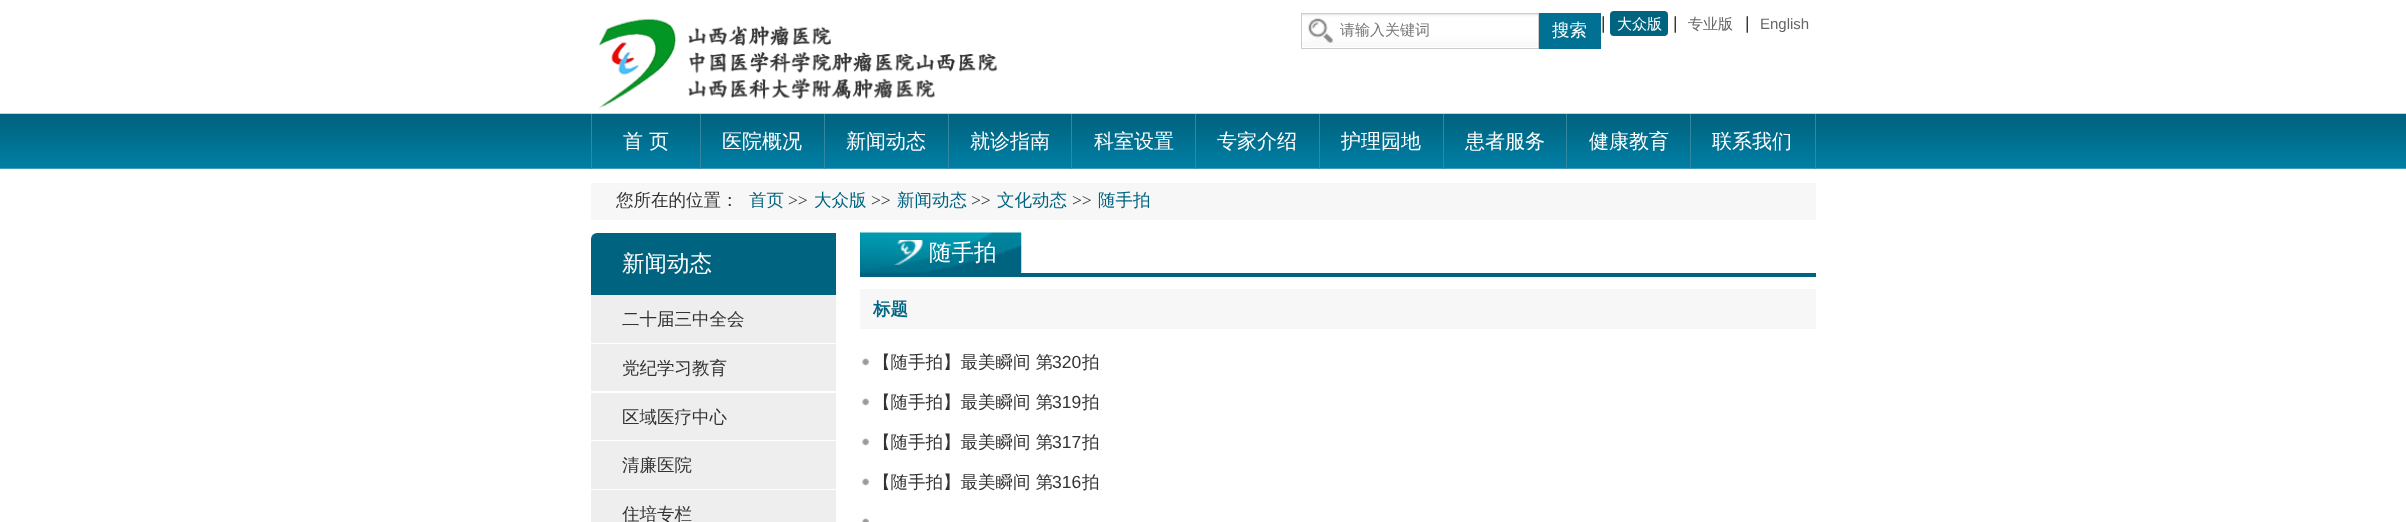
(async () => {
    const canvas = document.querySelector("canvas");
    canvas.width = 2406;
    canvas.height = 522;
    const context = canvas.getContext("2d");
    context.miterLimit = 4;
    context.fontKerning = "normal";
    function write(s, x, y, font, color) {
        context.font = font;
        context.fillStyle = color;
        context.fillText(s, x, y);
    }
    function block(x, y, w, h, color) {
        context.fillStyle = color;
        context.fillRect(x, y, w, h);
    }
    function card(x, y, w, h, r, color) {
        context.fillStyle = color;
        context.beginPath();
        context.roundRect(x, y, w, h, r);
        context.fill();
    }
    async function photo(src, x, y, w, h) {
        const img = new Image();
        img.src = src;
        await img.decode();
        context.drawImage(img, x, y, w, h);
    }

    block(0, 0, 2406, 522, "rgb(255, 255, 255)");
    await photo("media/1.png", 598, 18, 400, 91);
    await photo("media/2.png", 1302, 13, 300, 34);
    await photo("media/3.png", 1308, 18, 25, 25);
    context.strokeStyle = "rgb(204, 204, 204)";
    context.strokeRect(1301.5, 13.5, 237, 35);
    write("请输入关键词", 1340, 35, "500 15px WenQuanYi Zen Hei", "rgb(117, 117, 117)");
    block(1539, 13, 62, 36, "rgb(0, 113, 146)");
    write("搜索", 1552, 36, "500 17.5px WenQuanYi Zen Hei", "rgb(255, 255, 255)");
    write("|", 1601, 29, "17.5px Liberation Sans", "rgb(51, 51, 51)");
    card(1610, 11, 58, 25, 4, "rgb(0, 100, 129)");
    write("大众版", 1617, 29, "500 15px WenQuanYi Zen Hei", "rgb(255, 255, 255)");
    write("|", 1673, 29, "17.5px Liberation Sans", "rgb(51, 51, 51)");
    write("专业版", 1688, 29, "500 15px WenQuanYi Zen Hei", "rgb(102, 102, 102)");
    write("|", 1745, 29, "17.5px Liberation Sans", "rgb(51, 51, 51)");
    write("English", 1760, 29, "15px Liberation Sans", "rgb(102, 102, 102)");
    await photo("media/4.png", 0, 113, 2406, 56);
    block(1815, 114, 1, 55, "rgb(51, 135, 160)");
    block(591, 114, 1, 55, "rgb(51, 135, 160)");
    write("首 页", 623, 148, "500 20px WenQuanYi Zen Hei", "rgb(255, 255, 255)");
    block(700, 114, 1, 55, "rgb(51, 135, 160)");
    write("医院概况", 722, 148, "500 20px WenQuanYi Zen Hei", "rgb(255, 255, 255)");
    block(824, 114, 1, 55, "rgb(51, 135, 160)");
    write("新闻动态", 846, 148, "500 20px WenQuanYi Zen Hei", "rgb(255, 255, 255)");
    block(948, 114, 1, 55, "rgb(51, 135, 160)");
    write("就诊指南", 970, 148, "500 20px WenQuanYi Zen Hei", "rgb(255, 255, 255)");
    block(1071, 114, 1, 55, "rgb(51, 135, 160)");
    write("科室设置", 1094, 148, "500 20px WenQuanYi Zen Hei", "rgb(255, 255, 255)");
    block(1195, 114, 1, 55, "rgb(51, 135, 160)");
    write("专家介绍", 1217, 148, "500 20px WenQuanYi Zen Hei", "rgb(255, 255, 255)");
    block(1319, 114, 1, 55, "rgb(51, 135, 160)");
    write("护理园地", 1341, 148, "500 20px WenQuanYi Zen Hei", "rgb(255, 255, 255)");
    block(1443, 114, 1, 55, "rgb(51, 135, 160)");
    write("患者服务", 1465, 148, "500 20px WenQuanYi Zen Hei", "rgb(255, 255, 255)");
    block(1566, 114, 1, 55, "rgb(51, 135, 160)");
    write("健康教育", 1589, 148, "500 20px WenQuanYi Zen Hei", "rgb(255, 255, 255)");
    block(1690, 114, 1, 55, "rgb(51, 135, 160)");
    write("联系我们", 1712, 148, "500 20px WenQuanYi Zen Hei", "rgb(255, 255, 255)");
    block(591, 183, 1225, 37, "rgb(247, 247, 247)");
    write("您所在的位置：", 616, 206, "500 17.5px WenQuanYi Zen Hei", "rgb(51, 51, 51)");
    write("首页", 749, 206, "500 17.5px WenQuanYi Zen Hei", "rgb(0, 100, 129)");
    write(">>", 788, 206, "17.5px Liberation Serif", "rgb(51, 51, 51)");
    write("大众版", 814, 206, "500 17.5px WenQuanYi Zen Hei", "rgb(0, 100, 129)");
    write(">>", 871, 206, "17.5px Liberation Serif", "rgb(51, 51, 51)");
    write("新闻动态", 897, 206, "500 17.5px WenQuanYi Zen Hei", "rgb(0, 100, 129)");
    write(">>", 971, 206, "17.5px Liberation Serif", "rgb(51, 51, 51)");
    write("文化动态", 997, 206, "500 17.5px WenQuanYi Zen Hei", "rgb(0, 100, 129)");
    write(">>", 1072, 206, "17.5px Liberation Serif", "rgb(51, 51, 51)");
    write("随手拍", 1098, 206, "500 17.5px WenQuanYi Zen Hei", "rgb(0, 100, 129)");
    context.beginPath();
    context.roundRect(591, 233, 245, 62, [6, 0, 0, 0]);
    context.fill();
    write("新闻动态", 622, 271, "500 22.5px WenQuanYi Zen Hei", "rgb(255, 255, 255)");
    block(591, 295, 245, 48, "rgb(238, 238, 238)");
    write("二十届三中全会", 622, 325, "500 17.5px WenQuanYi Zen Hei", "rgb(51, 51, 51)");
    block(591, 344, 245, 47, "rgb(238, 238, 238)");
    write("党纪学习教育", 622, 374, "500 17.5px WenQuanYi Zen Hei", "rgb(51, 51, 51)");
    block(591, 393, 245, 47, "rgb(238, 238, 238)");
    write("区域医疗中心", 622, 423, "500 17.5px WenQuanYi Zen Hei", "rgb(51, 51, 51)");
    block(591, 441, 245, 48, "rgb(238, 238, 238)");
    write("清廉医院", 622, 471, "500 17.5px WenQuanYi Zen Hei", "rgb(51, 51, 51)");
    block(591, 490, 245, 32, "rgb(238, 238, 238)");
    write("住培专栏", 622, 520, "500 17.5px WenQuanYi Zen Hei", "rgb(51, 51, 51)");
    block(860, 273, 956, 4, "rgb(0, 100, 129)");
    block(860, 272, 161, 1, "rgb(0, 100, 129)");
    await photo("media/5.png", 860, 232, 162, 41);
    await photo("media/6.png", 893, 240, 30, 25);
    write("随手拍", 929, 260, "500 22.5px WenQuanYi Zen Hei", "rgb(255, 255, 255)");
    block(860, 289, 956, 40, "rgb(247, 247, 247)");
    write("标题", 873, 315, "bold 17.5px WenQuanYi Zen Hei", "rgb(0, 100, 129)");
    await photo("media/7.png", 862, 358, 7, 8);
    write("【随手拍】最美瞬间 第", 873, 368, "500 17.5px WenQuanYi Zen Hei", "rgb(51, 51, 51)");
    write("320", 1052, 368, "17.5px Liberation Sans", "rgb(51, 51, 51)");
    write("拍", 1082, 368, "500 17.5px WenQuanYi Zen Hei", "rgb(51, 51, 51)");
    await photo("media/7.png", 862, 398, 7, 8);
    write("【随手拍】最美瞬间 第", 873, 408, "500 17.5px WenQuanYi Zen Hei", "rgb(51, 51, 51)");
    write("319", 1052, 408, "17.5px Liberation Sans", "rgb(51, 51, 51)");
    write("拍", 1082, 408, "500 17.5px WenQuanYi Zen Hei", "rgb(51, 51, 51)");
    await photo("media/7.png", 862, 438, 7, 8);
    write("【随手拍】最美瞬间 第", 873, 448, "500 17.5px WenQuanYi Zen Hei", "rgb(51, 51, 51)");
    write("317", 1052, 448, "17.5px Liberation Sans", "rgb(51, 51, 51)");
    write("拍", 1082, 448, "500 17.5px WenQuanYi Zen Hei", "rgb(51, 51, 51)");
    await photo("media/7.png", 862, 478, 7, 8);
    write("【随手拍】最美瞬间 第", 873, 488, "500 17.5px WenQuanYi Zen Hei", "rgb(51, 51, 51)");
    write("316", 1052, 488, "17.5px Liberation Sans", "rgb(51, 51, 51)");
    write("拍", 1082, 488, "500 17.5px WenQuanYi Zen Hei", "rgb(51, 51, 51)");
    await photo("media/8.png", 862, 518, 7, 4);
})();
